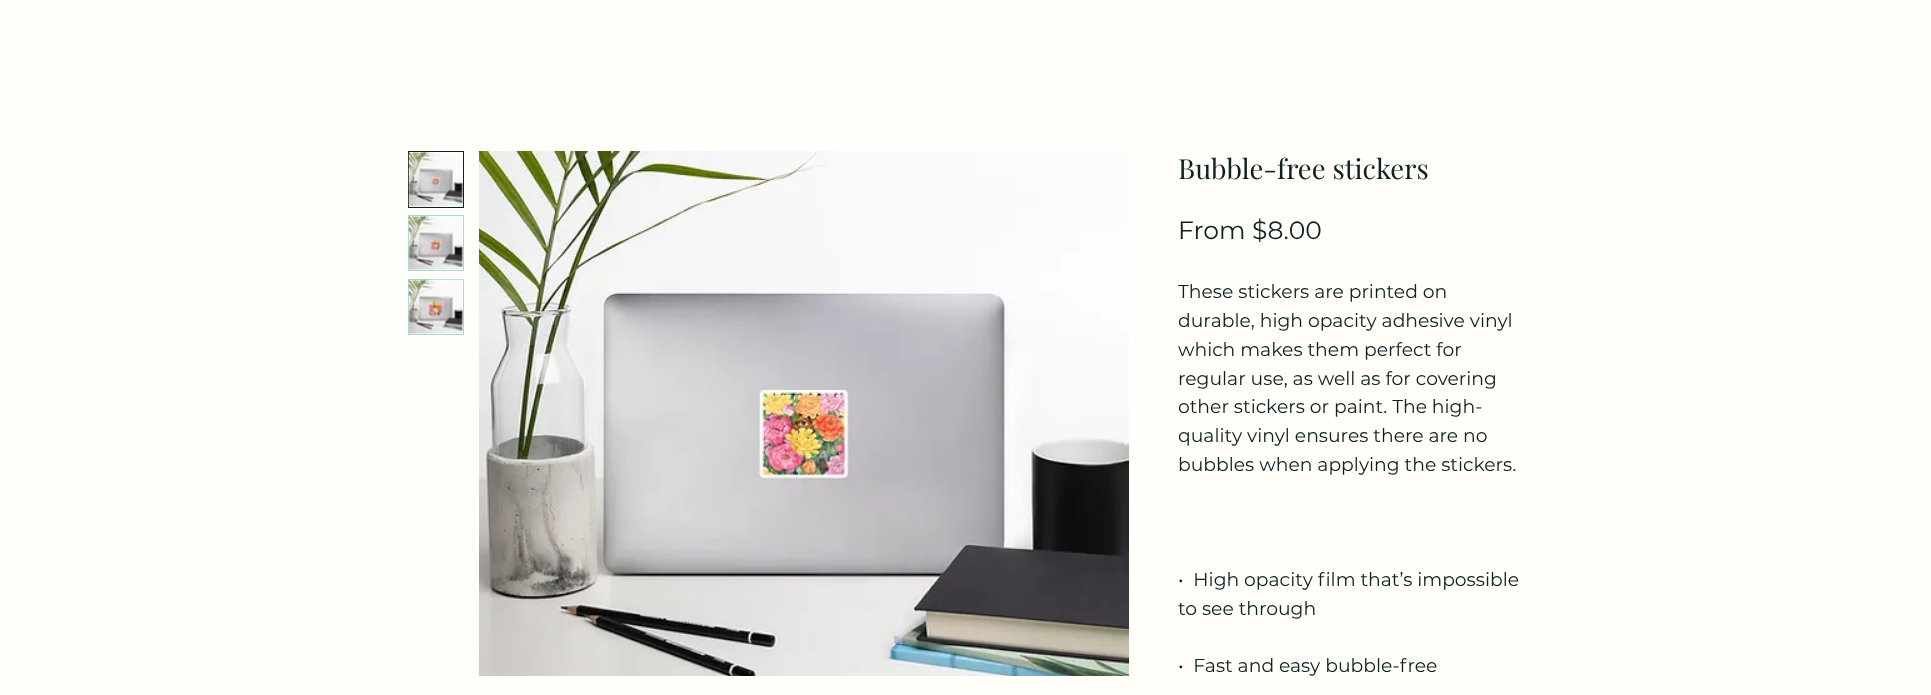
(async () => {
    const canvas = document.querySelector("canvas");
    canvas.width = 1931;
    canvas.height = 695;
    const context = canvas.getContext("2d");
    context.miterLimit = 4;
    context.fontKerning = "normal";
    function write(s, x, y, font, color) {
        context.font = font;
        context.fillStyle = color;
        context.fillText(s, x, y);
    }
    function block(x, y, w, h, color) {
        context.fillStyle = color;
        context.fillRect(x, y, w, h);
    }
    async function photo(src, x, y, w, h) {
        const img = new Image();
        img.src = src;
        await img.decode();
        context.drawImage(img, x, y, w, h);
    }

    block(0, 0, 1931, 695, "rgb(255, 254, 248)");
    context.strokeStyle = "rgb(13, 33, 35)";
    context.strokeRect(408.5, 151.5, 55, 56);
    await photo("media/1.png", 408, 152, 55, 55);
    context.strokeStyle = "rgb(167, 217, 222)";
    context.strokeRect(408.5, 215.5, 55, 55);
    await photo("media/2.png", 408, 215, 55, 56);
    context.strokeRect(408.5, 279.5, 55, 55);
    await photo("media/3.png", 408, 279, 55, 55);
    await photo("media/4.png", 479, 151, 650, 525);
    write("Bubble-free stickers", 1178, 179, "27.5px Playfair Display", "rgb(13, 33, 35)");
    write("From $8.00", 1178, 239, "25px Montserrat", "rgb(13, 33, 35)");
    write("These stickers are printed on", 1178, 298, "18.75px Montserrat", "rgb(13, 33, 35)");
    write("durable, high opacity adhesive vinyl", 1178, 327, "18.75px Montserrat", "rgb(13, 33, 35)");
    write("which makes them perfect for", 1178, 356, "18.75px Montserrat", "rgb(13, 33, 35)");
    write("regular use, as well as for covering", 1178, 385, "18.75px Montserrat", "rgb(13, 33, 35)");
    write("other stickers or paint. The high-", 1178, 413, "18.75px Montserrat", "rgb(13, 33, 35)");
    write("quality vinyl ensures there are no", 1178, 442, "18.75px Montserrat", "rgb(13, 33, 35)");
    write("bubbles when applying the stickers.", 1178, 471, "18.75px Montserrat", "rgb(13, 33, 35)");
    write("•  High opacity film that’s impossible", 1178, 586, "18.75px Montserrat", "rgb(13, 33, 35)");
    write("to see through", 1178, 615, "18.75px Montserrat", "rgb(13, 33, 35)");
    write("•  Fast and easy bubble-free", 1178, 672, "18.75px Montserrat", "rgb(13, 33, 35)");
})();
